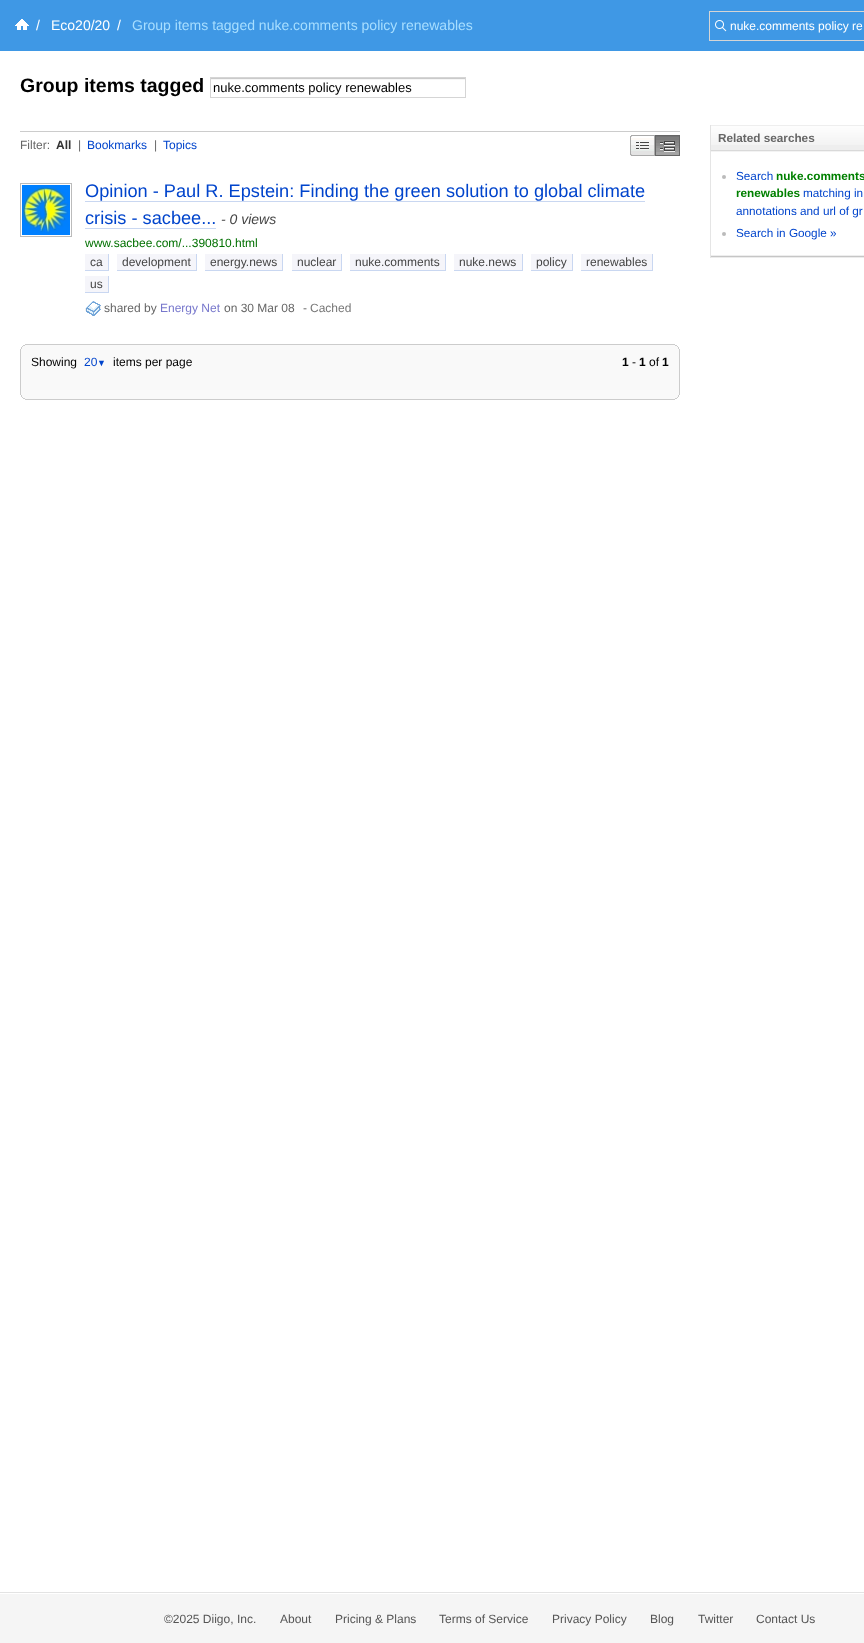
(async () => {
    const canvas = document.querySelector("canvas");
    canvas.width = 864;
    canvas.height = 1643;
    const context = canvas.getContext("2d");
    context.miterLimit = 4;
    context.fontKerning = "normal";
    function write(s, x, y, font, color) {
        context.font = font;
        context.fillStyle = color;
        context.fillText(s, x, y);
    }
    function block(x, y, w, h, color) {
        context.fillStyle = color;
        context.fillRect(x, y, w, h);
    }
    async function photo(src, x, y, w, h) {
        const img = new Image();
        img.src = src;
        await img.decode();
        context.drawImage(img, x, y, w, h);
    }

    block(0, 0, 864, 1643, "rgb(255, 255, 255)");
    block(0, 0, 864, 51, "rgb(63, 152, 229)");
    await photo("media/1.png", 15, 19, 14, 11);
    write("/", 36, 30, "14px Liberation Sans", "rgb(255, 255, 255)");
    write("Eco20/20", 51, 30, "14px Liberation Sans", "rgb(255, 255, 255)");
    write("/", 117, 30, "14px Liberation Sans", "rgb(255, 255, 255)");
    write("Group items tagged nuke.comments policy renewables", 132, 30, "14px Liberation Sans", "rgb(167, 222, 255)");
    await photo("media/2.png", 715, 20, 12, 12);
    context.strokeStyle = "rgb(213, 213, 213)";
    context.strokeRect(709.5, 11.5, 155, 29);
    write("nuke.comments policy re", 730, 30, "12px Liberation Sans", "rgb(255, 255, 255)");
    write("Group items tagged", 20, 92, "bold 19.5px Liberation Sans", "rgb(0, 0, 0)");
    await photo("media/3.png", 211, 78, 254, 2);
    context.strokeRect(210.5, 77.5, 255, 20);
    write("nuke.comments policy renewables", 213, 92, "13px Liberation Sans", "rgb(0, 0, 0)");
    block(20, 131, 660, 1, "rgb(204, 204, 204)");
    write("Filter:", 20, 149, "12px Liberation Sans", "rgb(102, 102, 102)");
    write("All", 56, 149, "bold 12px Liberation Sans", "rgb(51, 51, 51)");
    write("|", 78, 149, "12px Liberation Sans", "rgb(102, 102, 102)");
    write("Bookmarks", 87, 149, "12px Liberation Sans", "rgb(0, 68, 204)");
    write("|", 154, 149, "12px Liberation Sans", "rgb(102, 102, 102)");
    write("Topics", 163, 149, "12px Liberation Sans", "rgb(0, 68, 204)");
    await photo("media/4.png", 630, 135, 25, 21);
    await photo("media/5.png", 655, 135, 25, 21);
    context.strokeStyle = "rgb(187, 187, 187)";
    context.strokeRect(20.5, 183.5, 51, 53);
    await photo("media/6.png", 22, 185, 48, 50);
    write("Opinion - Paul R. Epstein: Finding the green solution to global climate", 85, 197, "18.2px Liberation Sans", "rgb(0, 68, 204)");
    block(85, 201, 560, 1, "rgb(201, 215, 241)");
    write("crisis - sacbee...", 85, 224, "18.2px Liberation Sans", "rgb(0, 68, 204)");
    block(85, 228, 131, 1, "rgb(201, 215, 241)");
    write("- 0 views", 221, 224, "italic 14px Liberation Sans", "rgb(68, 68, 68)");
    write("www.sacbee.com/...390810.html", 85, 247, "12px Liberation Sans", "rgb(0, 112, 0)");
    block(85, 254, 23, 16, "rgb(245, 245, 250)");
    write("ca", 90, 266, "12px Liberation Sans", "rgb(68, 68, 68)");
    block(108, 254, 1, 17, "rgb(201, 215, 241)");
    block(85, 270, 24, 1, "rgb(201, 215, 241)");
    block(117, 254, 79, 16, "rgb(245, 245, 250)");
    write("development", 122, 266, "12px Liberation Sans", "rgb(68, 68, 68)");
    block(196, 254, 1, 17, "rgb(201, 215, 241)");
    block(117, 270, 80, 1, "rgb(201, 215, 241)");
    block(205, 254, 77, 16, "rgb(245, 245, 250)");
    write("energy.news", 210, 266, "12px Liberation Sans", "rgb(68, 68, 68)");
    block(282, 254, 1, 17, "rgb(201, 215, 241)");
    block(205, 270, 78, 1, "rgb(201, 215, 241)");
    block(292, 254, 49, 16, "rgb(245, 245, 250)");
    write("nuclear", 297, 266, "12px Liberation Sans", "rgb(68, 68, 68)");
    block(341, 254, 1, 17, "rgb(201, 215, 241)");
    block(292, 270, 50, 1, "rgb(201, 215, 241)");
    block(350, 254, 95, 16, "rgb(245, 245, 250)");
    write("nuke.comments", 355, 266, "12px Liberation Sans", "rgb(68, 68, 68)");
    block(445, 254, 1, 17, "rgb(201, 215, 241)");
    block(350, 270, 96, 1, "rgb(201, 215, 241)");
    block(454, 254, 68, 16, "rgb(245, 245, 250)");
    write("nuke.news", 459, 266, "12px Liberation Sans", "rgb(68, 68, 68)");
    block(522, 254, 1, 17, "rgb(201, 215, 241)");
    block(454, 270, 69, 1, "rgb(201, 215, 241)");
    block(531, 254, 41, 16, "rgb(245, 245, 250)");
    write("policy", 536, 266, "12px Liberation Sans", "rgb(68, 68, 68)");
    block(572, 254, 1, 17, "rgb(201, 215, 241)");
    block(531, 270, 42, 1, "rgb(201, 215, 241)");
    block(581, 254, 71, 16, "rgb(245, 245, 250)");
    write("renewables", 586, 266, "12px Liberation Sans", "rgb(68, 68, 68)");
    block(652, 254, 1, 17, "rgb(201, 215, 241)");
    block(581, 270, 72, 1, "rgb(201, 215, 241)");
    block(85, 276, 23, 16, "rgb(245, 245, 250)");
    write("us", 90, 288, "12px Liberation Sans", "rgb(68, 68, 68)");
    block(108, 276, 1, 17, "rgb(201, 215, 241)");
    block(85, 292, 24, 1, "rgb(201, 215, 241)");
    await photo("media/7.png", 85, 301, 16, 15);
    write("shared by", 104, 312, "12px Liberation Sans", "rgb(102, 102, 102)");
    write("Energy Net", 160, 312, "12px Liberation Sans", "rgb(119, 119, 204)");
    write("on 30 Mar 08", 224, 312, "12px Liberation Sans", "rgb(102, 102, 102)");
    write("-", 303, 312, "12px Liberation Sans", "rgb(102, 102, 102)");
    write("Cached", 310, 312, "12px Liberation Sans", "rgb(119, 119, 119)");
    block(25, 344, 650, 1, "rgb(204, 204, 204)");
    block(23, 345, 654, 1, "rgb(249, 249, 249)");
    block(675, 345, 2, 1, "rgb(204, 204, 204)");
    block(23, 345, 2, 1, "rgb(204, 204, 204)");
    block(22, 346, 656, 1, "rgb(249, 249, 249)");
    block(677, 346, 1, 1, "rgb(204, 204, 204)");
    block(22, 346, 1, 1, "rgb(204, 204, 204)");
    block(21, 347, 658, 50, "rgb(249, 249, 249)");
    block(678, 347, 1, 2, "rgb(204, 204, 204)");
    block(21, 347, 1, 2, "rgb(204, 204, 204)");
    block(679, 349, 1, 46, "rgb(204, 204, 204)");
    block(20, 349, 1, 46, "rgb(204, 204, 204)");
    write("Showing", 31, 366, "12px Liberation Sans", "rgb(0, 0, 0)");
    write("20", 84, 366, "12px Liberation Sans", "rgb(0, 68, 204)");
    write("▼", 97, 366, "bold 9px Liberation Sans", "rgb(0, 68, 204)");
    write("items per page", 113, 366, "12px Liberation Sans", "rgb(0, 0, 0)");
    write("1", 622, 366, "bold 12px Liberation Sans", "rgb(0, 0, 0)");
    write("-", 632, 366, "12px Liberation Sans", "rgb(0, 0, 0)");
    write("1", 639, 366, "bold 12px Liberation Sans", "rgb(0, 0, 0)");
    write("of", 649, 366, "12px Liberation Sans", "rgb(0, 0, 0)");
    write("1", 662, 366, "bold 12px Liberation Sans", "rgb(0, 0, 0)");
    block(678, 395, 1, 2, "rgb(204, 204, 204)");
    block(21, 395, 1, 2, "rgb(204, 204, 204)");
    block(22, 397, 656, 1, "rgb(249, 249, 249)");
    block(677, 397, 1, 1, "rgb(204, 204, 204)");
    block(22, 397, 1, 1, "rgb(204, 204, 204)");
    block(23, 398, 654, 1, "rgb(249, 249, 249)");
    block(675, 398, 2, 1, "rgb(204, 204, 204)");
    block(23, 398, 2, 1, "rgb(204, 204, 204)");
    block(25, 399, 650, 1, "rgb(204, 204, 204)");
    block(711, 125, 153, 25, "rgb(238, 238, 238)");
    await photo("media/8.png", 711, 126, 153, 19);
    block(710, 150, 154, 1, "rgb(217, 217, 217)");
    block(710, 125, 1, 26, "rgb(226, 226, 226)");
    write("Related searches", 718, 142, "bold 11.75px Liberation Sans", "rgb(102, 102, 102)");
    await photo("media/9.png", 711, 255, 153, 2);
    block(710, 151, 154, 1, "rgb(243, 243, 243)");
    block(710, 257, 154, 1, "rgb(236, 236, 236)");
    block(710, 151, 1, 107, "rgb(229, 229, 229)");
    context.fillStyle = "rgb(187, 187, 187)";
    context.beginPath();
    context.arc(724, 177, 2, 0, Math.PI * 2);
    context.fill();
    write("Search", 736, 180, "11.75px Liberation Sans", "rgb(0, 68, 204)");
    write("nuke.comments", 776, 180, "bold 11.75px Liberation Sans", "rgb(0, 128, 0)");
    write("renewables", 736, 197, "bold 11.75px Liberation Sans", "rgb(0, 128, 0)");
    write("matching in", 803, 197, "11.75px Liberation Sans", "rgb(0, 68, 204)");
    write("annotations and url of gr", 736, 215, "11.75px Liberation Sans", "rgb(0, 68, 204)");
    context.fillStyle = "rgb(187, 187, 187)";
    context.beginPath();
    context.arc(724, 234, 2, 0, Math.PI * 2);
    context.fill();
    write("Search in Google »", 736, 237, "11.75px Liberation Sans", "rgb(0, 68, 204)");
    block(0, 1594, 864, 49, "rgb(245, 245, 245)");
    block(0, 1592, 864, 1, "rgb(227, 227, 227)");
    write("©2025 Diigo, Inc.", 164, 1623, "12px Liberation Sans", "rgb(85, 85, 85)");
    write("About", 280, 1623, "12px Liberation Sans", "rgb(85, 85, 85)");
    write("Pricing & Plans", 335, 1623, "12px Liberation Sans", "rgb(85, 85, 85)");
    write("Terms of Service", 439, 1623, "12px Liberation Sans", "rgb(85, 85, 85)");
    write("Privacy Policy", 552, 1623, "12px Liberation Sans", "rgb(85, 85, 85)");
    write("Blog", 650, 1623, "12px Liberation Sans", "rgb(85, 85, 85)");
    write("Twitter", 698, 1623, "12px Liberation Sans", "rgb(85, 85, 85)");
    write("Contact Us", 756, 1623, "12px Liberation Sans", "rgb(85, 85, 85)");
})();
